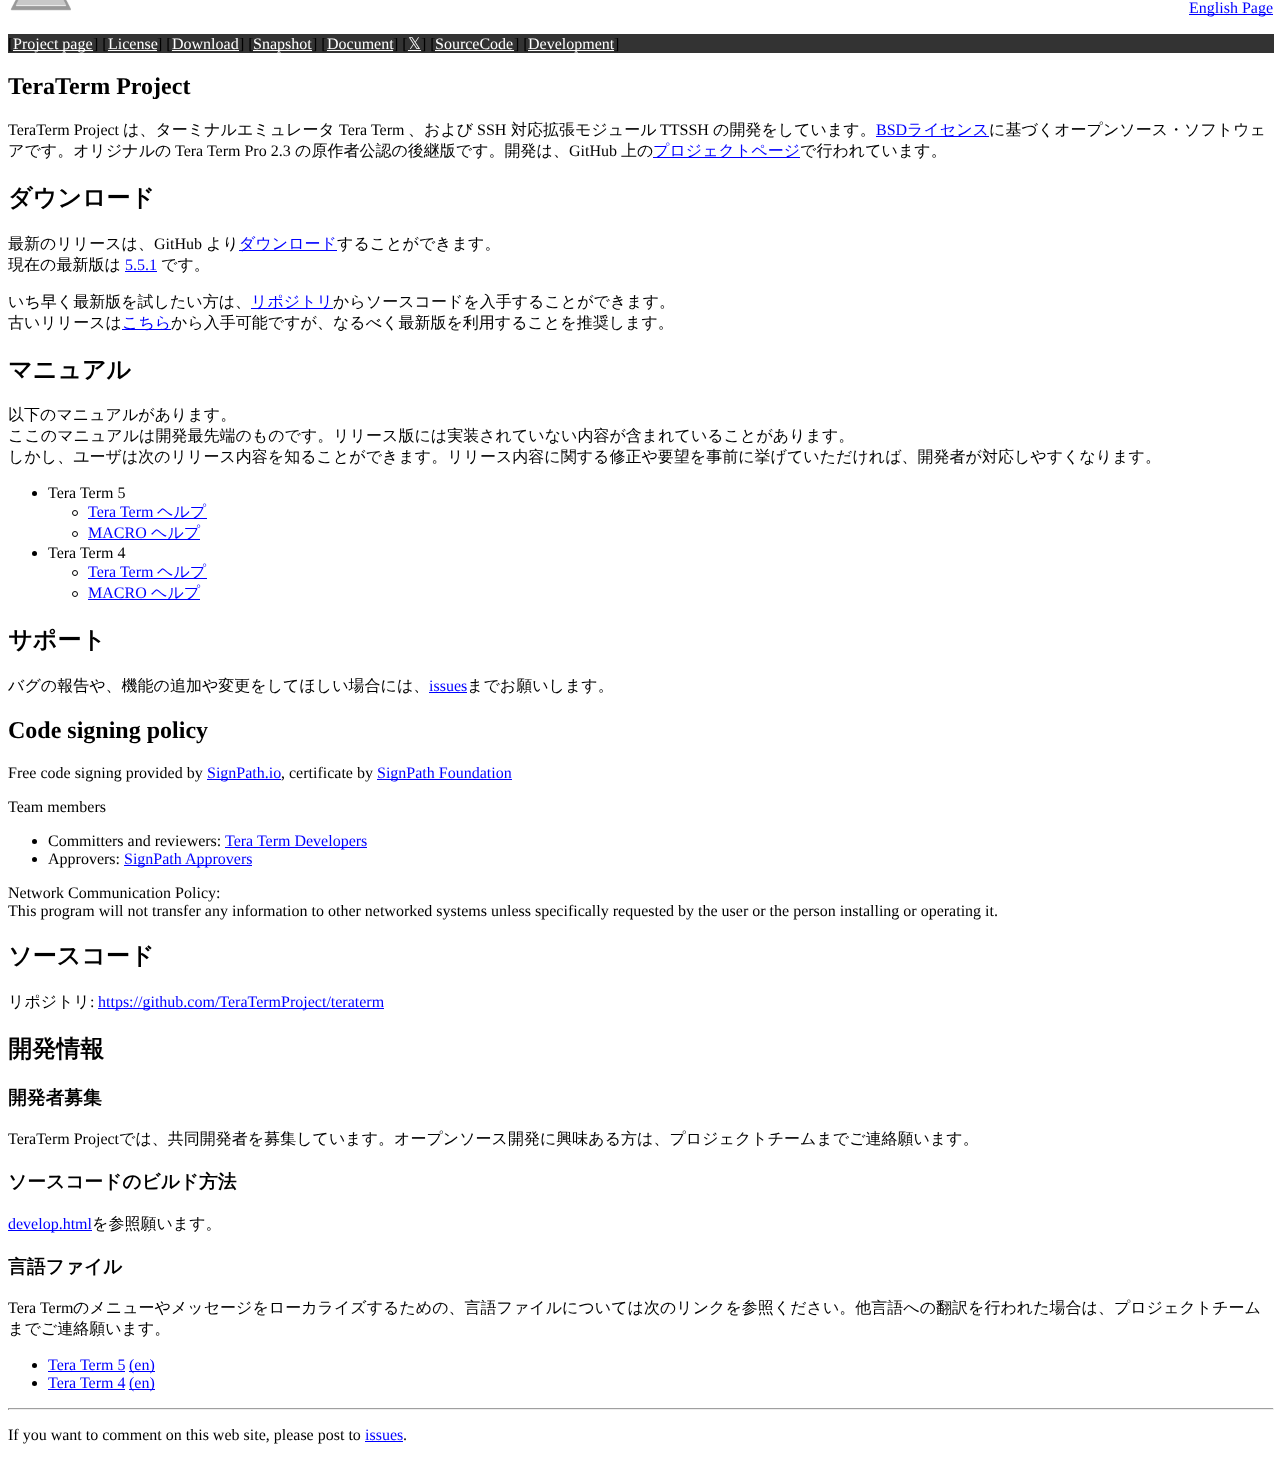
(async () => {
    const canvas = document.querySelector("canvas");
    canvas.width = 1282;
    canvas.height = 1457;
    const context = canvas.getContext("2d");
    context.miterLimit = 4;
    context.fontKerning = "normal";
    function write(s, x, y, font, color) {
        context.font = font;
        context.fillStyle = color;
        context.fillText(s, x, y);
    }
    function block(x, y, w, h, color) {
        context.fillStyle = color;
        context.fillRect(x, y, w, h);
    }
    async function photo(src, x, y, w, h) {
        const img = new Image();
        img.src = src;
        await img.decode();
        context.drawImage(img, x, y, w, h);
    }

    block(0, 0, 1282, 1457, "rgb(255, 255, 255)");
    await photo("media/1.png", 10, 0, 61, 11);
    block(1189, 14, 84, 1, "rgb(0, 0, 255)");
    write("English Page", 1189, 13, "16px Liberation Serif", "rgb(0, 0, 255)");
    block(8, 34, 1266, 19, "rgb(51, 51, 51)");
    write("[", 8, 49, "16px Liberation Serif", "rgb(0, 0, 0)");
    block(13, 50, 80, 1, "rgb(255, 255, 255)");
    write("Project page", 13, 49, "16px Liberation Serif", "rgb(255, 255, 255)");
    write("] [", 93, 49, "16px Liberation Serif", "rgb(0, 0, 0)");
    write("License", 108, 49, "16px Liberation Serif", "rgb(255, 255, 255)");
    block(108, 50, 49, 1, "rgb(255, 255, 255)");
    write("] [", 157, 49, "16px Liberation Serif", "rgb(0, 0, 0)");
    write("Download", 172, 49, "16px Liberation Serif", "rgb(255, 255, 255)");
    block(172, 50, 67, 1, "rgb(255, 255, 255)");
    write("] [", 239, 49, "16px Liberation Serif", "rgb(0, 0, 0)");
    block(253, 50, 59, 1, "rgb(255, 255, 255)");
    write("Snapshot", 253, 49, "16px Liberation Serif", "rgb(255, 255, 255)");
    write("] [", 312, 49, "16px Liberation Serif", "rgb(0, 0, 0)");
    write("Document", 327, 49, "16px Liberation Serif", "rgb(255, 255, 255)");
    block(327, 50, 66, 1, "rgb(255, 255, 255)");
    write("] [", 393, 49, "16px Liberation Serif", "rgb(0, 0, 0)");
    write("𝕏", 408, 49, "16px DejaVu Sans", "rgb(255, 255, 255)");
    block(408, 50, 13, 1, "rgb(255, 255, 255)");
    write("] [", 421, 49, "16px Liberation Serif", "rgb(0, 0, 0)");
    write("SourceCode", 435, 49, "16px Liberation Serif", "rgb(255, 255, 255)");
    block(435, 50, 79, 1, "rgb(255, 255, 255)");
    write("] [", 514, 49, "16px Liberation Serif", "rgb(0, 0, 0)");
    block(528, 50, 86, 1, "rgb(255, 255, 255)");
    write("Development", 528, 49, "16px Liberation Serif", "rgb(255, 255, 255)");
    write("]", 614, 49, "16px Liberation Serif", "rgb(0, 0, 0)");
    write("TeraTerm Project", 8, 94, "bold 24px Liberation Serif", "rgb(0, 0, 0)");
    write("TeraTerm Project", 8, 135, "16px Liberation Serif", "rgb(0, 0, 0)");
    write("は、ターミナルエミュレータ", 123, 135, "500 16px WenQuanYi Zen Hei", "rgb(0, 0, 0)");
    write("Tera Term", 339, 135, "16px Liberation Serif", "rgb(0, 0, 0)");
    write("、および", 408, 135, "500 16px WenQuanYi Zen Hei", "rgb(0, 0, 0)");
    write("SSH", 477, 135, "16px Liberation Serif", "rgb(0, 0, 0)");
    write("対応拡張モジュール", 511, 135, "500 16px WenQuanYi Zen Hei", "rgb(0, 0, 0)");
    write("TTSSH", 660, 135, "16px Liberation Serif", "rgb(0, 0, 0)");
    write("の開発をしています。", 713, 135, "500 16px WenQuanYi Zen Hei", "rgb(0, 0, 0)");
    write("BSD", 876, 135, "16px Liberation Serif", "rgb(0, 0, 255)");
    block(876, 136, 113, 1, "rgb(0, 0, 255)");
    write("ライセンス", 907, 135, "500 16px WenQuanYi Zen Hei", "rgb(0, 0, 255)");
    write("に基づくオープンソース・ソフトウェ", 989, 135, "500 16px WenQuanYi Zen Hei", "rgb(0, 0, 0)");
    write("アです。オリジナルの", 8, 156, "500 16px WenQuanYi Zen Hei", "rgb(0, 0, 0)");
    write("Tera Term Pro 2.3", 175, 156, "16px Liberation Serif", "rgb(0, 0, 0)");
    write("の原作者公認の後継版です。開発は、", 295, 156, "500 16px WenQuanYi Zen Hei", "rgb(0, 0, 0)");
    write("GitHub", 569, 156, "16px Liberation Serif", "rgb(0, 0, 0)");
    write("上の", 621, 156, "500 16px WenQuanYi Zen Hei", "rgb(0, 0, 0)");
    block(653, 157, 147, 1, "rgb(0, 0, 255)");
    write("プロジェクトページ", 653, 156, "500 16px WenQuanYi Zen Hei", "rgb(0, 0, 255)");
    write("で行われています。", 800, 156, "500 16px WenQuanYi Zen Hei", "rgb(0, 0, 0)");
    write("ダウンロード", 8, 206, "bold 24px WenQuanYi Zen Hei", "rgb(0, 0, 0)");
    write("最新のリリースは、", 8, 249, "500 16px WenQuanYi Zen Hei", "rgb(0, 0, 0)");
    write("GitHub", 154, 249, "16px Liberation Serif", "rgb(0, 0, 0)");
    write("より", 206, 249, "500 16px WenQuanYi Zen Hei", "rgb(0, 0, 0)");
    block(239, 250, 98, 1, "rgb(0, 0, 255)");
    write("ダウンロード", 239, 249, "500 16px WenQuanYi Zen Hei", "rgb(0, 0, 255)");
    write("することができます。", 337, 249, "500 16px WenQuanYi Zen Hei", "rgb(0, 0, 0)");
    write("現在の最新版は", 8, 270, "500 16px WenQuanYi Zen Hei", "rgb(0, 0, 0)");
    write("5.5.1", 125, 270, "16px Liberation Serif", "rgb(0, 0, 255)");
    block(125, 271, 32, 1, "rgb(0, 0, 255)");
    write("です。", 161, 270, "500 16px WenQuanYi Zen Hei", "rgb(0, 0, 0)");
    write("いち早く最新版を試したい方は、", 8, 307, "500 16px WenQuanYi Zen Hei", "rgb(0, 0, 0)");
    block(251, 308, 82, 1, "rgb(0, 0, 255)");
    write("リポジトリ", 251, 307, "500 16px WenQuanYi Zen Hei", "rgb(0, 0, 255)");
    write("からソースコードを入手することができます。", 333, 307, "500 16px WenQuanYi Zen Hei", "rgb(0, 0, 0)");
    write("古いリリースは", 8, 328, "500 16px WenQuanYi Zen Hei", "rgb(0, 0, 0)");
    block(122, 329, 49, 1, "rgb(0, 0, 255)");
    write("こちら", 122, 328, "500 16px WenQuanYi Zen Hei", "rgb(0, 0, 255)");
    write("から入手可能ですが、なるべく最新版を利用することを推奨します。", 171, 328, "500 16px WenQuanYi Zen Hei", "rgb(0, 0, 0)");
    write("マニュアル", 8, 378, "bold 24px WenQuanYi Zen Hei", "rgb(0, 0, 0)");
    write("以下のマニュアルがあります。", 8, 420, "500 16px WenQuanYi Zen Hei", "rgb(0, 0, 0)");
    write("ここのマニュアルは開発最先端のものです。リリース版には実装されていない内容が含まれていることがあります。", 8, 441, "500 16px WenQuanYi Zen Hei", "rgb(0, 0, 0)");
    write("しかし、ユーザは次のリリース内容を知ることができます。リリース内容に関する修正や要望を事前に挙げていただければ、開発者が対応しやすくなります。", 8, 462, "500 16px WenQuanYi Zen Hei", "rgb(0, 0, 0)");
    context.beginPath();
    context.arc(34.5, 493.5, 2.5, 0, Math.PI * 2);
    context.fill();
    write("Tera Term 5", 48, 498, "16px Liberation Serif", "rgb(0, 0, 0)");
    context.beginPath();
    context.arc(75, 513, 2.5, 0, Math.PI * 2);
    context.strokeStyle = "rgb(0, 0, 0)";
    context.stroke();
    write("Tera Term", 88, 517, "16px Liberation Serif", "rgb(0, 0, 255)");
    block(88, 518, 119, 1, "rgb(0, 0, 255)");
    write("ヘルプ", 157, 517, "500 16px WenQuanYi Zen Hei", "rgb(0, 0, 255)");
    context.beginPath();
    context.arc(75, 534, 2.5, 0, Math.PI * 2);
    context.stroke();
    write("MACRO", 88, 538, "16px Liberation Serif", "rgb(0, 0, 255)");
    block(88, 539, 112, 1, "rgb(0, 0, 255)");
    write("ヘルプ", 151, 538, "500 16px WenQuanYi Zen Hei", "rgb(0, 0, 255)");
    context.fillStyle = "rgb(0, 0, 0)";
    context.beginPath();
    context.arc(34.5, 553.5, 2.5, 0, Math.PI * 2);
    context.fill();
    write("Tera Term 4", 48, 558, "16px Liberation Serif", "rgb(0, 0, 0)");
    context.beginPath();
    context.arc(75, 573, 2.5, 0, Math.PI * 2);
    context.stroke();
    write("Tera Term", 88, 577, "16px Liberation Serif", "rgb(0, 0, 255)");
    block(88, 578, 119, 1, "rgb(0, 0, 255)");
    write("ヘルプ", 157, 577, "500 16px WenQuanYi Zen Hei", "rgb(0, 0, 255)");
    context.beginPath();
    context.arc(75, 594, 2.5, 0, Math.PI * 2);
    context.stroke();
    write("MACRO", 88, 598, "16px Liberation Serif", "rgb(0, 0, 255)");
    block(88, 599, 112, 1, "rgb(0, 0, 255)");
    write("ヘルプ", 151, 598, "500 16px WenQuanYi Zen Hei", "rgb(0, 0, 255)");
    write("サポート", 8, 648, "bold 24px WenQuanYi Zen Hei", "rgb(0, 0, 0)");
    write("バグの報告や、機能の追加や変更をしてほしい場合には、", 8, 691, "500 16px WenQuanYi Zen Hei", "rgb(0, 0, 0)");
    write("issues", 429, 691, "16px Liberation Serif", "rgb(0, 0, 255)");
    block(429, 692, 38, 1, "rgb(0, 0, 255)");
    write("までお願いします。", 467, 691, "500 16px WenQuanYi Zen Hei", "rgb(0, 0, 0)");
    write("Code signing policy", 8, 738, "bold 24px Liberation Serif", "rgb(0, 0, 0)");
    write("Free code signing provided by", 8, 778, "16px Liberation Serif", "rgb(0, 0, 0)");
    block(207, 779, 74, 1, "rgb(0, 0, 255)");
    write("SignPath.io", 207, 778, "16px Liberation Serif", "rgb(0, 0, 255)");
    write(", certificate by", 281, 778, "16px Liberation Serif", "rgb(0, 0, 0)");
    block(377, 779, 135, 1, "rgb(0, 0, 255)");
    write("SignPath Foundation", 377, 778, "16px Liberation Serif", "rgb(0, 0, 255)");
    write("Team members", 8, 812, "16px Liberation Serif", "rgb(0, 0, 0)");
    context.beginPath();
    context.arc(34.5, 841.5, 2.5, 0, Math.PI * 2);
    context.fill();
    write("Committers and reviewers:", 48, 846, "16px Liberation Serif", "rgb(0, 0, 0)");
    block(225, 847, 142, 1, "rgb(0, 0, 255)");
    write("Tera Term Developers", 225, 846, "16px Liberation Serif", "rgb(0, 0, 255)");
    context.fillStyle = "rgb(0, 0, 0)";
    context.beginPath();
    context.arc(34.5, 859.5, 2.5, 0, Math.PI * 2);
    context.fill();
    write("Approvers:", 48, 864, "16px Liberation Serif", "rgb(0, 0, 0)");
    block(124, 865, 128, 1, "rgb(0, 0, 255)");
    write("SignPath Approvers", 124, 864, "16px Liberation Serif", "rgb(0, 0, 255)");
    write("Network Communication Policy:", 8, 898, "16px Liberation Serif", "rgb(0, 0, 0)");
    write("This program will not transfer any information to other networked systems unless specifically requested by the user or the person installing or operating it.", 8, 916, "16px Liberation Serif", "rgb(0, 0, 0)");
    write("ソースコード", 8, 964, "bold 24px WenQuanYi Zen Hei", "rgb(0, 0, 0)");
    write("リポジトリ", 8, 1007, "500 16px WenQuanYi Zen Hei", "rgb(0, 0, 0)");
    write(":", 90, 1007, "16px Liberation Serif", "rgb(0, 0, 0)");
    block(98, 1008, 286, 1, "rgb(0, 0, 255)");
    write("https://github.com/TeraTermProject/teraterm", 98, 1007, "16px Liberation Serif", "rgb(0, 0, 255)");
    write("開発情報", 8, 1057, "bold 24px WenQuanYi Zen Hei", "rgb(0, 0, 0)");
    write("開発者募集", 8, 1104, "bold 18.75px WenQuanYi Zen Hei", "rgb(0, 0, 0)");
    write("TeraTerm Project", 8, 1144, "16px Liberation Serif", "rgb(0, 0, 0)");
    write("では、共同開発者を募集しています。オープンソース開発に興味ある方は、プロジェクトチームまでご連絡願います。", 119, 1144, "500 16px WenQuanYi Zen Hei", "rgb(0, 0, 0)");
    write("ソースコードのビルド方法", 8, 1188, "bold 18.75px WenQuanYi Zen Hei", "rgb(0, 0, 0)");
    block(8, 1230, 84, 1, "rgb(0, 0, 255)");
    write("develop.html", 8, 1229, "16px Liberation Serif", "rgb(0, 0, 255)");
    write("を参照願います。", 92, 1229, "500 16px WenQuanYi Zen Hei", "rgb(0, 0, 0)");
    write("言語ファイル", 8, 1273, "bold 18.75px WenQuanYi Zen Hei", "rgb(0, 0, 0)");
    write("Tera Term", 8, 1313, "16px Liberation Serif", "rgb(0, 0, 0)");
    write("のメニューやメッセージをローカライズするための、言語ファイルについては次のリンクを参照ください。他言語への翻訳を行われた場合は、プロジェクトチーム", 73, 1313, "500 16px WenQuanYi Zen Hei", "rgb(0, 0, 0)");
    write("までご連絡願います。", 8, 1334, "500 16px WenQuanYi Zen Hei", "rgb(0, 0, 0)");
    context.beginPath();
    context.arc(34.5, 1365.5, 2.5, 0, Math.PI * 2);
    context.fill();
    write("Tera Term 5", 48, 1370, "16px Liberation Serif", "rgb(0, 0, 255)");
    block(48, 1371, 77, 1, "rgb(0, 0, 255)");
    block(129, 1371, 26, 1, "rgb(0, 0, 255)");
    write("(en)", 129, 1370, "16px Liberation Serif", "rgb(0, 0, 255)");
    context.fillStyle = "rgb(0, 0, 0)";
    context.beginPath();
    context.arc(34.5, 1383.5, 2.5, 0, Math.PI * 2);
    context.fill();
    write("Tera Term 4", 48, 1388, "16px Liberation Serif", "rgb(0, 0, 255)");
    block(48, 1389, 77, 1, "rgb(0, 0, 255)");
    block(129, 1389, 26, 1, "rgb(0, 0, 255)");
    write("(en)", 129, 1388, "16px Liberation Serif", "rgb(0, 0, 255)");
    block(8, 1408, 1266, 1, "rgb(159, 159, 159)");
    block(1273, 1408, 1, 2, "rgb(238, 238, 238)");
    block(8, 1409, 1266, 1, "rgb(238, 238, 238)");
    block(8, 1408, 1, 2, "rgb(159, 159, 159)");
    write("If you want to comment on this web site, please post to", 8, 1440, "16px Liberation Serif", "rgb(0, 0, 0)");
    write("issues", 365, 1440, "16px Liberation Serif", "rgb(0, 0, 255)");
    block(365, 1441, 38, 1, "rgb(0, 0, 255)");
    write(".", 403, 1440, "16px Liberation Serif", "rgb(0, 0, 0)");
})();
